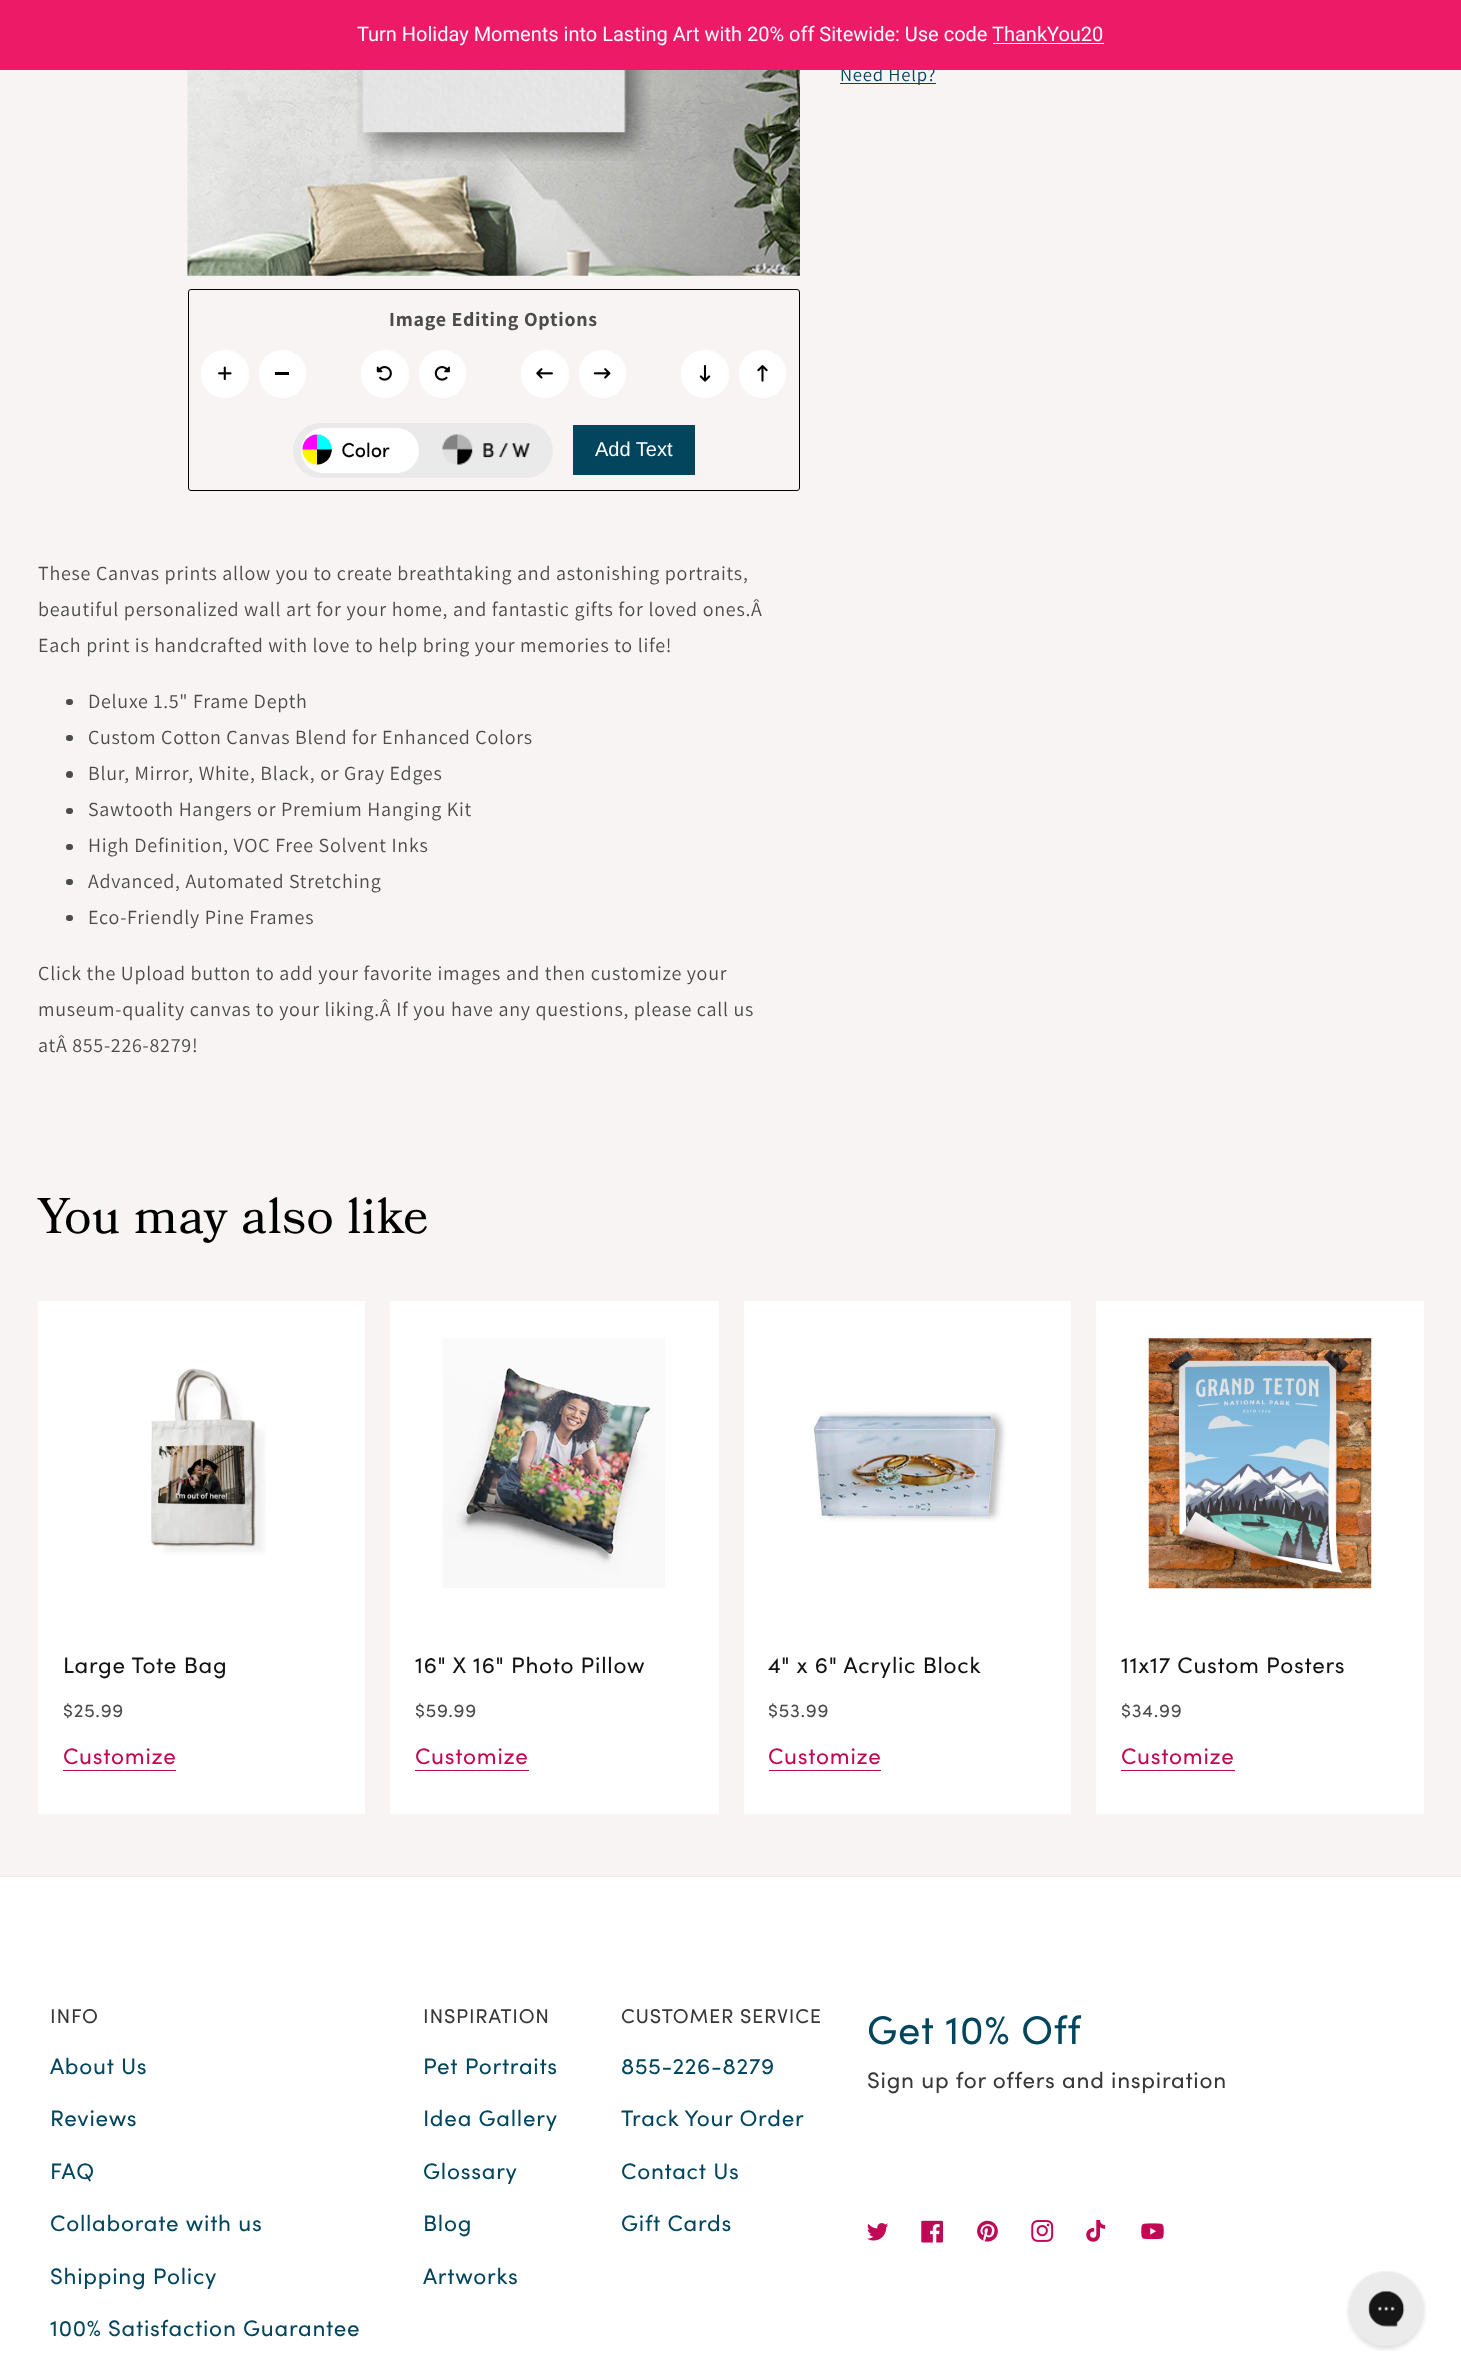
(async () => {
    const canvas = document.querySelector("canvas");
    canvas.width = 1461;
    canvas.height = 2380;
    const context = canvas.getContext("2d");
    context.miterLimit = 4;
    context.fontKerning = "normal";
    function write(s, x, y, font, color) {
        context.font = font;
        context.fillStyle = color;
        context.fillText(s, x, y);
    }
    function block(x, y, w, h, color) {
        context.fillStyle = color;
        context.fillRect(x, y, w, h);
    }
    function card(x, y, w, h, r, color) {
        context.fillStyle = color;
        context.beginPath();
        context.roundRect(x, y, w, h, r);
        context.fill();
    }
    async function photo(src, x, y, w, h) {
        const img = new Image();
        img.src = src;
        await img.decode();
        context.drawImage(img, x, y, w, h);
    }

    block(0, 0, 1461, 2380, "rgb(248, 244, 244)");
    block(840, 83, 96, 1, "rgb(2, 69, 93)");
    context.letterSpacing = "0.75px";
    write("Need Help?", 840, 81, "18.75px Assistant", "rgb(2, 69, 93)");
    block(0, 0, 1461, 70, "rgb(237, 27, 103)");
    context.letterSpacing = "0px";
    write("Turn Holiday Moments into Lasting Art with 20% off Sitewide: Use code ThankYou20", 357, 41, "20px Roboto", "rgb(255, 255, 255)");
    block(993, 43, 111, 1, "rgb(255, 255, 255)");
    await photo("media/1.png", 187, 70, 613, 206);
    await photo("media/2.png", 357, 70, 294, 91);
    context.beginPath();
    context.roundRect(188.5, 289.5, 611, 201, 2.5);
    context.strokeStyle = "rgb(0, 0, 0)";
    context.stroke();
    context.letterSpacing = "0.75px";
    write("Image Editing Options", 389, 326, "bold 20px Assistant", "rgb(76, 75, 75)");
    card(201, 350, 48, 48, 23, "rgb(255, 255, 255)");
    await photo("media/3.png", 218, 366, 14, 15);
    card(259, 350, 47, 48, 23, "rgb(255, 255, 255)");
    block(275, 372, 14, 3, "rgb(0, 0, 0)");
    card(361, 350, 48, 48, 23, "rgb(255, 255, 255)");
    await photo("media/4.png", 376, 366, 16, 15);
    card(419, 350, 47, 48, 23, "rgb(255, 255, 255)");
    await photo("media/5.png", 434, 366, 16, 15);
    card(521, 350, 48, 48, 23, "rgb(255, 255, 255)");
    await photo("media/6.png", 536, 368, 17, 11);
    card(579, 350, 47, 48, 23, "rgb(255, 255, 255)");
    await photo("media/7.png", 593, 368, 18, 11);
    card(681, 350, 48, 48, 23, "rgb(255, 255, 255)");
    await photo("media/8.png", 699, 365, 12, 17);
    card(739, 350, 47, 48, 23, "rgb(255, 255, 255)");
    await photo("media/9.png", 757, 365, 11, 17);
    card(293, 423, 260, 55, 27.5, "rgb(234, 234, 234)");
    card(301, 428, 118, 45, 22.5, "rgb(255, 255, 255)");
    await photo("media/10.png", 302, 434, 88, 31);
    await photo("media/11.png", 442, 434, 88, 31);
    block(573, 425, 122, 50, "rgb(2, 69, 93)");
    context.letterSpacing = "0px";
    write("Add Text", 595, 456, "20px Liberation Sans", "rgb(255, 255, 255)");
    context.letterSpacing = "0.75px";
    write("These Canvas prints allow you to create breathtaking and astonishing portraits,", 38, 580, "20px Assistant", "rgb(76, 75, 75)");
    write("beautiful personalized wall art for your home, and fantastic gifts for loved ones.Â", 38, 616, "20px Assistant", "rgb(76, 75, 75)");
    write("Each print is handcrafted with love to help bring your memories to life!", 38, 652, "20px Assistant", "rgb(76, 75, 75)");
    card(66, 699, 7, 6, 3, "rgb(76, 75, 75)");
    write("Deluxe 1.5\" Frame Depth", 88, 708, "20px Assistant", "rgb(76, 75, 75)");
    card(66, 735, 7, 6, 3, "rgb(76, 75, 75)");
    write("Custom Cotton Canvas Blend for Enhanced Colors", 88, 744, "20px Assistant", "rgb(76, 75, 75)");
    context.beginPath();
    context.arc(69.5, 774.5, 3.5, 0, Math.PI * 2);
    context.fill();
    write("Blur, Mirror, White, Black, or Gray Edges", 88, 780, "20px Assistant", "rgb(76, 75, 75)");
    card(66, 808, 7, 6, 3, "rgb(76, 75, 75)");
    write("Sawtooth Hangers or Premium Hanging Kit", 88, 816, "20px Assistant", "rgb(76, 75, 75)");
    card(66, 844, 7, 6, 3, "rgb(76, 75, 75)");
    write("High Definition, VOC Free Solvent Inks", 88, 852, "20px Assistant", "rgb(76, 75, 75)");
    card(66, 879, 7, 6, 3, "rgb(76, 75, 75)");
    write("Advanced, Automated Stretching", 88, 888, "20px Assistant", "rgb(76, 75, 75)");
    card(66, 915, 7, 6, 3, "rgb(76, 75, 75)");
    write("Eco-Friendly Pine Frames", 88, 924, "20px Assistant", "rgb(76, 75, 75)");
    write("Click the Upload button to add your favorite images and then customize your", 38, 980, "20px Assistant", "rgb(76, 75, 75)");
    write("museum-quality canvas to your liking.Â If you have any questions, please call us", 38, 1016, "20px Assistant", "rgb(76, 75, 75)");
    write("atÂ 855-226-8279!", 38, 1052, "20px Assistant", "rgb(76, 75, 75)");
    write("You may also like", 38, 1233, "50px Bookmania", "rgb(0, 0, 0)");
    block(38, 1301, 327, 513, "rgb(255, 255, 255)");
    await photo("media/12.png", 151, 1368, 115, 187);
    write("Large Tote Bag", 63, 1673, "22.5px Sofia", "rgb(18, 18, 18)");
    write("$25.99", 63, 1717, "18.75px Sofia", "rgb(76, 75, 75)");
    write("Customize", 63, 1764, "22.5px Sofia", "rgb(194, 7, 84)");
    block(63, 1770, 113, 1, "rgb(194, 7, 84)");
    block(390, 1301, 329, 513, "rgb(255, 255, 255)");
    await photo("media/13.png", 442, 1338, 223, 250);
    write("16\" X 16\" Photo Pillow", 415, 1673, "22.5px Sofia", "rgb(18, 18, 18)");
    write("$59.99", 415, 1717, "18.75px Sofia", "rgb(76, 75, 75)");
    write("Customize", 415, 1764, "22.5px Sofia", "rgb(194, 7, 84)");
    block(415, 1770, 114, 1, "rgb(194, 7, 84)");
    block(744, 1301, 327, 513, "rgb(255, 255, 255)");
    await photo("media/14.png", 813, 1411, 193, 111);
    write("4\" x 6\" Acrylic Block", 768, 1673, "22.5px Sofia", "rgb(18, 18, 18)");
    write("$53.99", 768, 1717, "18.75px Sofia", "rgb(76, 75, 75)");
    write("Customize", 768, 1764, "22.5px Sofia", "rgb(194, 7, 84)");
    block(769, 1770, 112, 1, "rgb(194, 7, 84)");
    block(1096, 1301, 328, 513, "rgb(255, 255, 255)");
    await photo("media/15.png", 1148, 1338, 224, 251);
    write("11x17 Custom Posters", 1121, 1673, "22.5px Sofia", "rgb(18, 18, 18)");
    write("$34.99", 1121, 1717, "18.75px Sofia", "rgb(76, 75, 75)");
    write("Customize", 1121, 1764, "22.5px Sofia", "rgb(194, 7, 84)");
    block(1121, 1770, 114, 1, "rgb(194, 7, 84)");
    block(0, 1877, 1461, 503, "rgb(255, 255, 255)");
    block(0, 1876, 1461, 1, "rgb(236, 236, 236)");
    write("INFO", 50, 2023, "20px Sofia", "rgb(55, 55, 55)");
    write("About Us", 50, 2074, "22.5px Sofia", "rgb(2, 69, 93)");
    write("Reviews", 50, 2126, "22.5px Sofia", "rgb(2, 69, 93)");
    write("FAQ", 50, 2179, "22.5px Sofia", "rgb(2, 69, 93)");
    write("Collaborate with us", 50, 2231, "22.5px Sofia", "rgb(2, 69, 93)");
    write("Shipping Policy", 50, 2284, "22.5px Sofia", "rgb(2, 69, 93)");
    write("100% Satisfaction Guarantee", 50, 2336, "22.5px Sofia", "rgb(2, 69, 93)");
    write("INSPIRATION", 423, 2023, "20px Sofia", "rgb(55, 55, 55)");
    write("Pet Portraits", 423, 2074, "22.5px Sofia", "rgb(2, 69, 93)");
    write("Idea Gallery", 423, 2126, "22.5px Sofia", "rgb(2, 69, 93)");
    write("Glossary", 423, 2179, "22.5px Sofia", "rgb(2, 69, 93)");
    write("Blog", 423, 2231, "22.5px Sofia", "rgb(2, 69, 93)");
    write("Artworks", 423, 2284, "22.5px Sofia", "rgb(2, 69, 93)");
    write("CUSTOMER SERVICE", 621, 2023, "20px Sofia", "rgb(55, 55, 55)");
    write("855-226-8279", 621, 2074, "22.5px Sofia", "rgb(2, 69, 93)");
    write("Track Your Order", 621, 2126, "22.5px Sofia", "rgb(2, 69, 93)");
    write("Contact Us", 621, 2179, "22.5px Sofia", "rgb(2, 69, 93)");
    write("Gift Cards", 621, 2231, "22.5px Sofia", "rgb(2, 69, 93)");
    write("Get 10% Off", 867, 2044, "40px Sofia", "rgb(2, 69, 93)");
    write("Sign up for offers and inspiration", 867, 2088, "22.5px Sofia", "rgb(55, 55, 55)");
    await photo("media/16.png", 867, 2223, 22, 18);
    await photo("media/17.png", 921, 2220, 22, 23);
    await photo("media/18.png", 977, 2220, 21, 22);
    await photo("media/19.png", 1031, 2220, 23, 22);
    await photo("media/20.png", 1086, 2220, 20, 22);
    await photo("media/21.png", 1141, 2223, 23, 17);
    await photo("media/22.png", 1346, 2271, 80, 80);
})();
